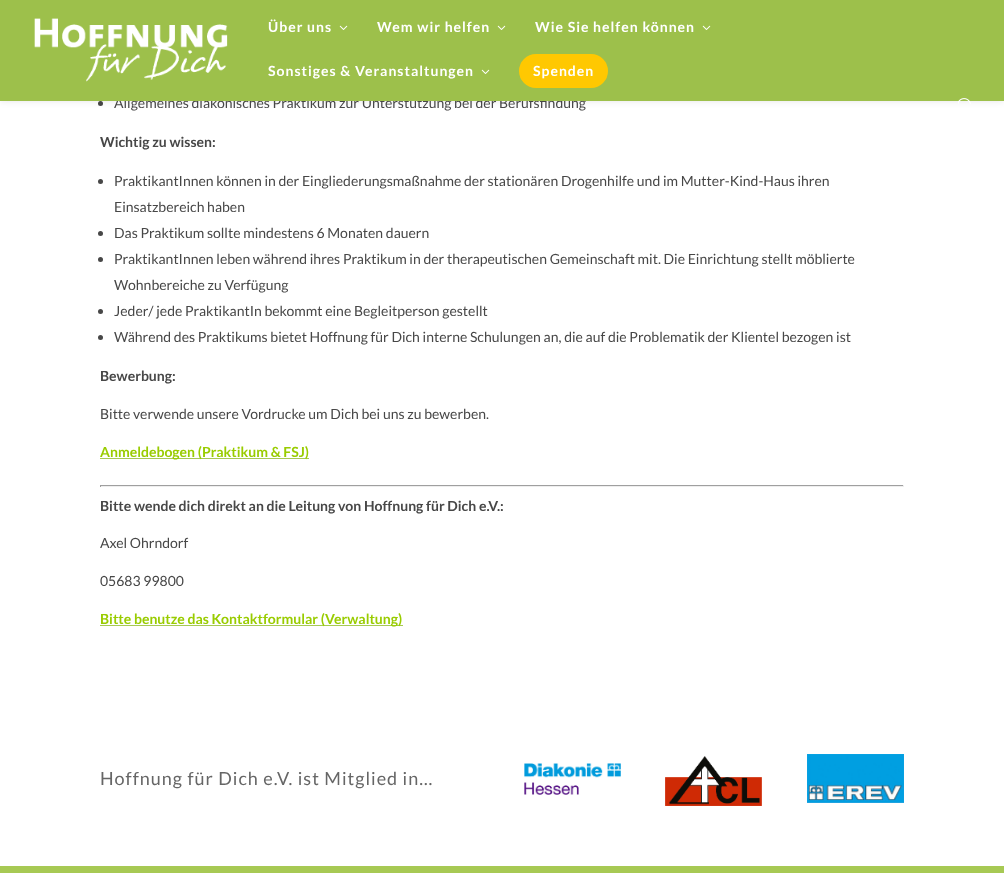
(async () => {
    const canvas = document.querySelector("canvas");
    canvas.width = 1004;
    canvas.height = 873;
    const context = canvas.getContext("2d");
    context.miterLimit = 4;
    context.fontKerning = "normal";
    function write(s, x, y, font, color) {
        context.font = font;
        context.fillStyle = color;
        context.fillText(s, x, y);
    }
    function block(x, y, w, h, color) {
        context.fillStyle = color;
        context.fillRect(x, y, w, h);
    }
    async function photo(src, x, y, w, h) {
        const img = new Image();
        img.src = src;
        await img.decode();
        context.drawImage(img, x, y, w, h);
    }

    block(0, 0, 1004, 873, "rgb(255, 255, 255)");
    context.fillStyle = "rgb(71, 71, 71)";
    context.beginPath();
    context.arc(100.5, 103.5, 2.5, 0, Math.PI * 2);
    context.fill();
    context.fillStyle = "rgba(0, 0, 0, 0.1)";
    context.filter = "blur(3.5px)";
    context.beginPath();
    context.rect(0, 0, 1004, 101);
    context.fill();
    context.filter = "none";
    write("Allgemeines diakonisches Praktikum zur Unterstützung bei der Berufsfindung", 114, 108, "14px Lato", "rgb(71, 71, 71)");
    block(0, 0, 1004, 101, "rgb(157, 192, 75)");
    await photo("media/1.png", 34, 18, 194, 64);
    context.letterSpacing = "1px";
    write("Über uns", 268, 32, "bold 14px Lato", "rgb(255, 255, 255)");
    await photo("media/2.png", 339, 25, 9, 5);
    write("Wem wir helfen", 377, 32, "bold 14px Lato", "rgb(255, 255, 255)");
    await photo("media/2.png", 497, 25, 9, 5);
    write("Wie Sie helfen können", 535, 32, "bold 14px Lato", "rgb(255, 255, 255)");
    await photo("media/2.png", 702, 25, 9, 5);
    write("Sonstiges & Veranstaltungen", 268, 76, "bold 14px Lato", "rgb(255, 255, 255)");
    await photo("media/2.png", 481, 69, 9, 5);
    context.fillStyle = "rgb(255, 200, 1)";
    context.beginPath();
    context.roundRect(520, 55, 87, 32, 16);
    context.fill();
    context.strokeStyle = "rgb(255, 200, 1)";
    context.lineWidth = 2;
    context.stroke();
    write("Spenden", 533, 76, "bold 14px Lato", "rgb(255, 255, 255)");
    await photo("media/3.png", 958, 98, 13, 6);
    context.letterSpacing = "0px";
    write("Wichtig zu wissen:", 100, 147, "bold 14px Lato", "rgb(71, 71, 71)");
    context.beginPath();
    context.arc(100.5, 181.5, 2.5, 0, Math.PI * 2);
    context.fill();
    write("PraktikantInnen können in der Eingliederungsmaßnahme der stationären Drogenhilfe und im Mutter-Kind-Haus ihren", 114, 186, "14px Lato", "rgb(71, 71, 71)");
    write("Einsatzbereich haben", 114, 212, "14px Lato", "rgb(71, 71, 71)");
    context.beginPath();
    context.arc(100.5, 233.5, 2.5, 0, Math.PI * 2);
    context.fill();
    write("Das Praktikum sollte mindestens 6 Monaten dauern", 114, 238, "14px Lato", "rgb(71, 71, 71)");
    context.beginPath();
    context.arc(100.5, 259.5, 2.5, 0, Math.PI * 2);
    context.fill();
    write("PraktikantInnen leben während ihres Praktikum in der therapeutischen Gemeinschaft mit. Die Einrichtung stellt möblierte", 114, 264, "14px Lato", "rgb(71, 71, 71)");
    write("Wohnbereiche zu Verfügung", 114, 290, "14px Lato", "rgb(71, 71, 71)");
    context.beginPath();
    context.arc(100.5, 311.5, 2.5, 0, Math.PI * 2);
    context.fill();
    write("Jeder/ jede PraktikantIn bekommt eine Begleitperson gestellt", 114, 316, "14px Lato", "rgb(71, 71, 71)");
    context.beginPath();
    context.arc(100.5, 337.5, 2.5, 0, Math.PI * 2);
    context.fill();
    write("Während des Praktikums bietet Hoffnung für Dich interne Schulungen an, die auf die Problematik der Klientel bezogen ist", 114, 342, "14px Lato", "rgb(71, 71, 71)");
    write("Bewerbung:", 100, 381, "bold 14px Lato", "rgb(71, 71, 71)");
    write("Bitte verwende unsere Vordrucke um Dich bei uns zu bewerben.", 100, 419, "14px Lato", "rgb(71, 71, 71)");
    block(100, 458, 209, 1, "rgb(167, 201, 84)");
    write("Anmeldebogen (Praktikum & FSJ)", 100, 457, "bold 14px Lato", "rgb(153, 204, 0)");
    block(100, 485, 804, 1, "rgb(159, 159, 159)");
    block(903, 485, 1, 2, "rgb(238, 238, 238)");
    block(100, 486, 804, 1, "rgb(238, 238, 238)");
    block(100, 485, 1, 2, "rgb(159, 159, 159)");
    write("Bitte wende dich direkt an die Leitung von Hoffnung für Dich e.V.:", 100, 511, "bold 14px Lato", "rgb(71, 71, 71)");
    write("Axel Ohrndorf", 100, 548, "14px Lato", "rgb(71, 71, 71)");
    write("05683 99800", 100, 586, "14px Lato", "rgb(71, 71, 71)");
    block(100, 625, 303, 1, "rgb(167, 201, 84)");
    write("Bitte benutze das Kontaktformular (Verwaltung)", 100, 624, "bold 14px Lato", "rgb(153, 204, 0)");
    context.letterSpacing = "1px";
    write("Hoffnung für Dich e.V. ist Mitglied in…", 100, 785, "18px Lato", "rgb(102, 102, 102)");
    await photo("media/4.png", 524, 763, 97, 32);
    await photo("media/5.png", 665, 756, 97, 50);
    await photo("media/6.png", 807, 754, 97, 49);
    block(0, 866, 1004, 7, "rgb(167, 201, 84)");
})();
